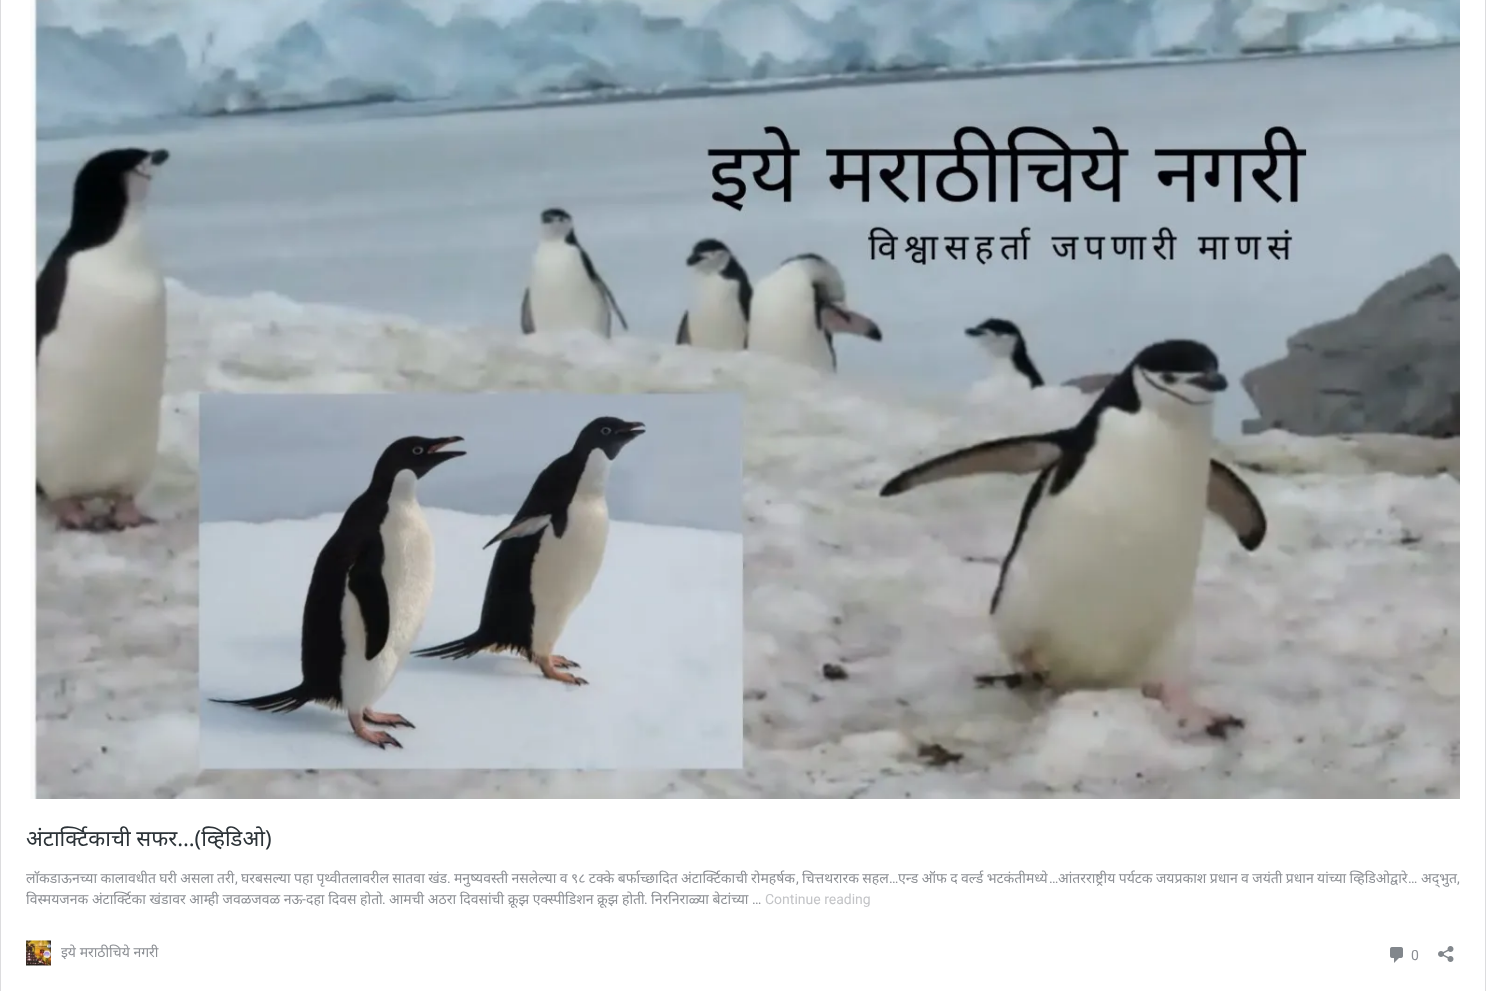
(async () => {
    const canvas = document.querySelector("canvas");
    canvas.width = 1486;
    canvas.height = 991;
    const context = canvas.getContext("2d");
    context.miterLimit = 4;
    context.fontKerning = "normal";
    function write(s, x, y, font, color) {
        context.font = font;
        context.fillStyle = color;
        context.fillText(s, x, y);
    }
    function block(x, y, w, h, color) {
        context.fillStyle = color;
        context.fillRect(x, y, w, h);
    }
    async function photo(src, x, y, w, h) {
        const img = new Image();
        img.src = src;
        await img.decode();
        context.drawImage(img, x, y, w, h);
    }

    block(0, 0, 1486, 991, "rgb(255, 255, 255)");
    context.strokeStyle = "rgb(220, 220, 222)";
    context.strokeRect(0.5, -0.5, 1485, 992);
    await photo("media/1.png", 30, 0, 1430, 799);
    write("अंटार्क्टिकाची सफर…(व्हिडिओ)", 26, 846, "22px Noto Sans", "rgb(44, 51, 56)");
    context.wordSpacing = "-0.25px";
    write("लाॅकडाऊनच्या कालावधीत घरी असला तरी", 26, 883, "14px Noto Sans", "rgb(140, 143, 148)");
    context.wordSpacing = "0px";
    write(",", 235, 883, "14px Roboto", "rgb(140, 143, 148)");
    context.wordSpacing = "-0.25px";
    write("घरबसल्या पहा पृथ्वीतलावरील सातवा खंड", 241, 883, "14px Noto Sans", "rgb(140, 143, 148)");
    context.wordSpacing = "0px";
    write(".", 447, 883, "14px Roboto", "rgb(140, 143, 148)");
    context.wordSpacing = "-0.25px";
    write("मनुष्यवस्ती नसलेल्या व ९८ टक्के बर्फाच्छादित अंटार्क्टिकाची रोमहर्षक", 454, 883, "14px Noto Sans", "rgb(140, 143, 148)");
    context.wordSpacing = "0px";
    write(",", 796, 883, "14px Roboto", "rgb(140, 143, 148)");
    context.wordSpacing = "-0.25px";
    write("चित्तथरारक सहल", 802, 883, "14px Noto Sans", "rgb(140, 143, 148)");
    context.wordSpacing = "0px";
    write("…", 889, 883, "14px Roboto", "rgb(140, 143, 148)");
    context.wordSpacing = "-0.25px";
    write("एन्ड ऑफ द वर्ल्ड भटकंतीमध्ये", 898, 883, "14px Noto Sans", "rgb(140, 143, 148)");
    context.wordSpacing = "0px";
    write("…", 1049, 883, "14px Roboto", "rgb(140, 143, 148)");
    context.wordSpacing = "-0.25px";
    write("आंतरराष्ट्रीय पर्यटक जयप्रकाश प्रधान व जयंती प्रधान यांच्या व्हिडिओद्वारे", 1058, 883, "14px Noto Sans", "rgb(140, 143, 148)");
    context.wordSpacing = "0px";
    write("…", 1408, 883, "14px Roboto", "rgb(140, 143, 148)");
    write("अद्‍भुत", 1421, 883, "14px Noto Sans", "rgb(140, 143, 148)");
    write(",", 1457, 883, "14px Roboto", "rgb(140, 143, 148)");
    write("विस्मयजनक अंटार्क्टिका खंडावर आम्ही जवळजवळ नऊ", 26, 904, "14px Noto Sans", "rgb(140, 143, 148)");
    write("-", 302, 904, "14px Roboto", "rgb(140, 143, 148)");
    write("दहा दिवस होतो", 306, 904, "14px Noto Sans", "rgb(140, 143, 148)");
    write("आमची अठरा दिवसांची क्रूझ एक्स्पीडिशन क्रूझ होती", 389, 904, "14px Noto Sans", "rgb(140, 143, 148)");
    write("निरनिराळ्या बेटांच्या", 651, 904, "14px Noto Sans", "rgb(140, 143, 148)");
    write("Continue reading", 765, 904, "14px Roboto", "rgb(195, 196, 199)");
    write(".", 382, 904, "14px Roboto", "rgb(140, 143, 148)");
    write(".", 644, 904, "14px Roboto", "rgb(140, 143, 148)");
    write("…", 752, 904, "14px Roboto", "rgb(140, 143, 148)");
    await photo("media/2.png", 26, 940, 25, 26);
    write("इये मराठीचिये नगरी", 61, 957, "14px Noto Sans", "rgb(140, 143, 148)");
    await photo("media/3.png", 1390, 947, 13, 16);
    write("0", 1411, 960, "14px Roboto", "rgb(140, 143, 148)");
    await photo("media/4.png", 1438, 946, 16, 16);
})();
